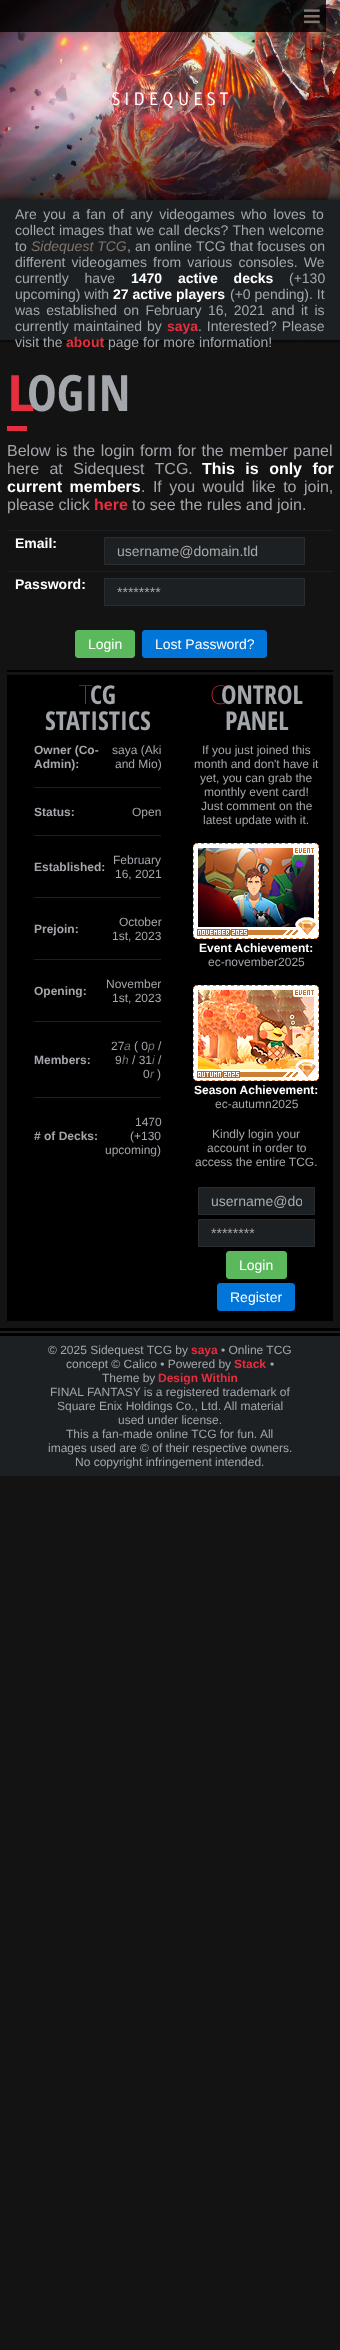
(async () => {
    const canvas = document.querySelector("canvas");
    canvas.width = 340;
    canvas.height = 2350;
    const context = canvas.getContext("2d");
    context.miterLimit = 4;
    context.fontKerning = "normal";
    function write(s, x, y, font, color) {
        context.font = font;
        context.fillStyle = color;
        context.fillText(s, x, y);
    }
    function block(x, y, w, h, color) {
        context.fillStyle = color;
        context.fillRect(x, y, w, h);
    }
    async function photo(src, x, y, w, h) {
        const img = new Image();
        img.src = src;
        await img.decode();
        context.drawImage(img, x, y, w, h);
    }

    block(0, 0, 340, 2350, "rgb(19, 19, 19)");
    await photo("media/1.png", 0, 0, 340, 200);
    block(0, 0, 326, 32, "rgba(0, 0, 0, 0.8)");
    await photo("media/2.png", 304, 9, 16, 15);
    await photo("media/3.png", 0, 193, 340, 150);
    context.wordSpacing = "2.5px";
    write("Are you a fan of any videogames who loves to", 15, 219, "14px Liberation Sans", "rgb(163, 166, 171)");
    context.wordSpacing = "0.5px";
    write("collect images that we call decks? Then welcome", 15, 235, "14px Liberation Sans", "rgb(163, 166, 171)");
    context.wordSpacing = "0px";
    write("to", 15, 251, "14px Liberation Sans", "rgb(163, 166, 171)");
    write("Sidequest TCG", 31, 251, "italic 14px Liberation Sans", "rgb(130, 116, 107)");
    context.wordSpacing = "0.25px";
    write(", an online TCG that focuses on", 127, 251, "14px Liberation Sans", "rgb(163, 166, 171)");
    context.wordSpacing = "2.25px";
    write("different videogames from various consoles. We", 15, 267, "14px Liberation Sans", "rgb(163, 166, 171)");
    context.wordSpacing = "12px";
    write("currently have", 15, 283, "14px Liberation Sans", "rgb(163, 166, 171)");
    write("1470 active decks", 131, 283, "bold 14px Liberation Sans", "rgb(255, 255, 255)");
    context.wordSpacing = "0px";
    write("(+130", 289, 283, "14px Liberation Sans", "rgb(163, 166, 171)");
    write("upcoming) with", 15, 299, "14px Liberation Sans", "rgb(163, 166, 171)");
    write("27 active players", 113, 299, "bold 14px Liberation Sans", "rgb(255, 255, 255)");
    write("(+0 pending). It", 230, 299, "14px Liberation Sans", "rgb(163, 166, 171)");
    context.wordSpacing = "2.5px";
    write("was established on February 16, 2021 and it is", 15, 315, "14px Liberation Sans", "rgb(163, 166, 171)");
    context.wordSpacing = "1px";
    write("currently maintained by", 15, 331, "14px Liberation Sans", "rgb(163, 166, 171)");
    context.wordSpacing = "0px";
    write("saya", 167, 331, "bold 14px Liberation Sans", "rgb(229, 46, 62)");
    context.wordSpacing = "1px";
    write(". Interested? Please", 198, 331, "14px Liberation Sans", "rgb(163, 166, 171)");
    context.wordSpacing = "0px";
    write("visit the", 15, 347, "14px Liberation Sans", "rgb(163, 166, 171)");
    write("about", 66, 347, "bold 14px Liberation Sans", "rgb(229, 46, 62)");
    write("page for more information!", 108, 347, "14px Liberation Sans", "rgb(163, 166, 171)");
    write("L", 7, 411, "bold 50px Noto Sans", "rgb(229, 46, 62)");
    block(7, 426, 20, 5, "rgb(229, 46, 62)");
    write("OGIN", 27, 411, "bold 50px Open Sans Condensed", "rgb(163, 166, 171)");
    context.wordSpacing = "1px";
    write("Below is the login form for the member panel", 7, 456, "16px Liberation Sans", "rgb(163, 166, 171)");
    context.wordSpacing = "6px";
    write("here at Sidequest TCG.", 7, 474, "16px Liberation Sans", "rgb(163, 166, 171)");
    write("This is only for", 202, 474, "bold 16px Liberation Sans", "rgb(255, 255, 255)");
    context.wordSpacing = "3px";
    write("current members", 7, 492, "bold 16px Liberation Sans", "rgb(255, 255, 255)");
    write(". If you would like to join,", 141, 492, "16px Liberation Sans", "rgb(163, 166, 171)");
    context.wordSpacing = "0px";
    write("please click", 7, 510, "16px Liberation Sans", "rgb(163, 166, 171)");
    write("here", 94, 510, "bold 16px Liberation Sans", "rgb(229, 46, 62)");
    write("to see the rules and join.", 132, 510, "16px Liberation Sans", "rgb(163, 166, 171)");
    write("Email:", 15, 548, "bold 14px Liberation Sans", "rgb(255, 255, 255)");
    block(7, 530, 326, 1, "rgb(28, 32, 35)");
    context.beginPath();
    context.rect(104.5, 537.5, 200, 27);
    context.fill();
    context.strokeStyle = "rgb(39, 45, 49)";
    context.stroke();
    write("username@domain.tld", 117, 556, "14px Liberation Sans", "rgb(170, 170, 170)");
    write("Password:", 15, 589, "bold 14px Liberation Sans", "rgb(255, 255, 255)");
    block(7, 571, 326, 1, "rgb(28, 32, 35)");
    context.beginPath();
    context.rect(104.5, 578.5, 200, 27);
    context.fill();
    context.stroke();
    write("********", 117, 597, "14px Liberation Sans", "rgb(170, 170, 170)");
    context.fillStyle = "rgb(92, 184, 92)";
    context.beginPath();
    context.roundRect(75.5, 630.5, 59, 27, 2.5);
    context.fill();
    context.strokeStyle = "rgb(92, 184, 92)";
    context.stroke();
    write("Login", 88, 649, "14px Liberation Sans", "rgb(255, 255, 255)");
    context.fillStyle = "rgb(2, 117, 216)";
    context.beginPath();
    context.roundRect(142.5, 630.5, 124, 27, 2.5);
    context.fill();
    context.strokeStyle = "rgb(2, 117, 216)";
    context.stroke();
    write("Lost Password?", 155, 649, "14px Liberation Sans", "rgb(255, 255, 255)");
    block(7, 670, 326, 651, "rgb(0, 0, 0)");
    block(7, 672, 326, 3, "rgb(19, 19, 19)");
    write("T", 79, 704, "100 26px Noto Sans", "rgb(229, 46, 62)");
    write("CG", 90, 704, "bold 26px Open Sans Condensed", "rgb(163, 166, 171)");
    write("STATISTICS", 45, 730, "bold 26px Open Sans Condensed", "rgb(163, 166, 171)");
    write("Owner (Co-", 34, 754, "bold 12px Liberation Sans", "rgb(163, 166, 171)");
    write("Admin):", 34, 768, "bold 12px Liberation Sans", "rgb(163, 166, 171)");
    write("saya (Aki", 112, 754, "12px Liberation Sans", "rgb(163, 166, 171)");
    write("and Mio)", 115, 768, "12px Liberation Sans", "rgb(163, 166, 171)");
    block(34, 787, 127, 1, "rgb(28, 32, 35)");
    write("Status:", 34, 816, "bold 12px Liberation Sans", "rgb(163, 166, 171)");
    write("Open", 132, 816, "12px Liberation Sans", "rgb(163, 166, 171)");
    block(34, 835, 127, 1, "rgb(28, 32, 35)");
    write("Established:", 34, 871, "bold 12px Liberation Sans", "rgb(163, 166, 171)");
    write("February", 113, 864, "12px Liberation Sans", "rgb(163, 166, 171)");
    write("16, 2021", 115, 878, "12px Liberation Sans", "rgb(163, 166, 171)");
    block(34, 897, 127, 1, "rgb(28, 32, 35)");
    write("Prejoin:", 34, 933, "bold 12px Liberation Sans", "rgb(163, 166, 171)");
    write("October", 119, 926, "12px Liberation Sans", "rgb(163, 166, 171)");
    write("1st, 2023", 112, 940, "12px Liberation Sans", "rgb(163, 166, 171)");
    block(34, 959, 127, 1, "rgb(28, 32, 35)");
    write("Opening:", 34, 995, "bold 12px Liberation Sans", "rgb(163, 166, 171)");
    write("November", 106, 988, "12px Liberation Sans", "rgb(163, 166, 171)");
    write("1st, 2023", 112, 1002, "12px Liberation Sans", "rgb(163, 166, 171)");
    block(34, 1021, 127, 1, "rgb(28, 32, 35)");
    write("Members:", 34, 1064, "bold 12px Liberation Sans", "rgb(163, 166, 171)");
    write("27", 111, 1050, "12px Liberation Sans", "rgb(163, 166, 171)");
    write("a", 124, 1050, "italic 12px Liberation Sans", "rgb(130, 116, 107)");
    write("( 0", 134, 1050, "12px Liberation Sans", "rgb(163, 166, 171)");
    write("p", 148, 1050, "italic 12px Liberation Sans", "rgb(130, 116, 107)");
    write("/", 158, 1050, "12px Liberation Sans", "rgb(163, 166, 171)");
    write("9", 115, 1064, "12px Liberation Sans", "rgb(163, 166, 171)");
    write("h", 122, 1064, "italic 12px Liberation Sans", "rgb(130, 116, 107)");
    write("/ 31", 132, 1064, "12px Liberation Sans", "rgb(163, 166, 171)");
    write("i", 152, 1064, "italic 12px Liberation Sans", "rgb(130, 116, 107)");
    write("/", 158, 1064, "12px Liberation Sans", "rgb(163, 166, 171)");
    write("0", 143, 1078, "12px Liberation Sans", "rgb(163, 166, 171)");
    write("r", 150, 1078, "italic 12px Liberation Sans", "rgb(130, 116, 107)");
    write(")", 157, 1078, "12px Liberation Sans", "rgb(163, 166, 171)");
    block(34, 1097, 127, 1, "rgb(28, 32, 35)");
    write("# of Decks:", 34, 1140, "bold 12px Liberation Sans", "rgb(163, 166, 171)");
    write("1470", 135, 1126, "12px Liberation Sans", "rgb(163, 166, 171)");
    write("(+130", 130, 1140, "12px Liberation Sans", "rgb(163, 166, 171)");
    write("upcoming)", 105, 1154, "12px Liberation Sans", "rgb(163, 166, 171)");
    write("C", 210, 704, "100 26px Noto Sans", "rgb(229, 46, 62)");
    write("ONTROL", 221, 704, "bold 26px Open Sans Condensed", "rgb(163, 166, 171)");
    write("PANEL", 225, 730, "bold 26px Open Sans Condensed", "rgb(163, 166, 171)");
    write("If you just joined this", 202, 754, "12px Liberation Sans", "rgb(163, 166, 171)");
    write("month and don't have it", 194, 768, "12px Liberation Sans", "rgb(163, 166, 171)");
    write("yet, you can grab the", 200, 782, "12px Liberation Sans", "rgb(163, 166, 171)");
    write("monthly event card!", 204, 796, "12px Liberation Sans", "rgb(163, 166, 171)");
    write("Just comment on the", 201, 810, "12px Liberation Sans", "rgb(163, 166, 171)");
    write("latest update with it.", 203, 824, "12px Liberation Sans", "rgb(163, 166, 171)");
    await photo("media/4.png", 193, 843, 126, 96);
    write("Event Achievement:", 199, 952, "bold 12px Liberation Sans", "rgb(255, 255, 255)");
    write("ec-november2025", 208, 966, "12px Liberation Sans", "rgb(163, 166, 171)");
    await photo("media/5.png", 193, 985, 126, 96);
    write("Season Achievement:", 194, 1094, "bold 12px Liberation Sans", "rgb(255, 255, 255)");
    write("ec-autumn2025", 215, 1108, "12px Liberation Sans", "rgb(163, 166, 171)");
    write("Kindly login your", 212, 1138, "12px Liberation Sans", "rgb(163, 166, 171)");
    write("account in order to", 207, 1152, "12px Liberation Sans", "rgb(163, 166, 171)");
    write("access the entire TCG.", 195, 1166, "12px Liberation Sans", "rgb(163, 166, 171)");
    context.fillStyle = "rgb(28, 32, 35)";
    context.beginPath();
    context.rect(198.5, 1187.5, 116, 27);
    context.fill();
    context.strokeStyle = "rgb(39, 45, 49)";
    context.stroke();
    context.save();
    context.beginPath();
    context.rect(211, 1193, 91, 16);
    context.clip();
    write("username@do", 211, 1206, "14px Liberation Sans", "rgb(170, 170, 170)");
    context.restore();
    context.beginPath();
    context.rect(198.5, 1219.5, 116, 27);
    context.fill();
    context.stroke();
    write("********", 211, 1238, "14px Liberation Sans", "rgb(170, 170, 170)");
    context.fillStyle = "rgb(92, 184, 92)";
    context.beginPath();
    context.roundRect(226.5, 1251.5, 60, 27, 2.5);
    context.fill();
    context.strokeStyle = "rgb(92, 184, 92)";
    context.stroke();
    write("Login", 239, 1270, "14px Liberation Sans", "rgb(255, 255, 255)");
    context.fillStyle = "rgb(2, 117, 216)";
    context.beginPath();
    context.roundRect(217.5, 1283.5, 77, 27, 2.5);
    context.fill();
    context.strokeStyle = "rgb(2, 117, 216)";
    context.stroke();
    write("Register", 230, 1302, "14px Liberation Sans", "rgb(255, 255, 255)");
    block(0, 1331, 340, 145, "rgb(28, 32, 35)");
    block(0, 1328, 340, 3, "rgb(0, 0, 0)");
    block(0, 1333, 340, 3, "rgb(0, 0, 0)");
    write("© 2025 Sidequest TCG by", 48, 1354, "12px Liberation Sans", "rgb(163, 166, 171)");
    write("saya", 191, 1354, "bold 12px Liberation Sans", "rgb(229, 46, 62)");
    write("• Online TCG", 221, 1354, "12px Liberation Sans", "rgb(163, 166, 171)");
    write("concept © Calico • Powered by", 66, 1368, "12px Liberation Sans", "rgb(163, 166, 171)");
    write("Stack", 234, 1368, "bold 12px Liberation Sans", "rgb(229, 46, 62)");
    write("•", 270, 1368, "12px Liberation Sans", "rgb(163, 166, 171)");
    write("Theme by", 102, 1382, "12px Liberation Sans", "rgb(163, 166, 171)");
    write("Design Within", 158, 1382, "bold 12px Liberation Sans", "rgb(229, 46, 62)");
    write("FINAL FANTASY is a registered trademark of", 50, 1396, "12px Liberation Sans", "rgb(163, 166, 171)");
    write("Square Enix Holdings Co., Ltd. All material", 57, 1410, "12px Liberation Sans", "rgb(163, 166, 171)");
    write("used under license.", 118, 1424, "12px Liberation Sans", "rgb(163, 166, 171)");
    write("This a fan-made online TCG for fun. All", 66, 1438, "12px Liberation Sans", "rgb(163, 166, 171)");
    write("images used are © of their respective owners.", 48, 1452, "12px Liberation Sans", "rgb(163, 166, 171)");
    write("No copyright infringement intended.", 75, 1466, "12px Liberation Sans", "rgb(163, 166, 171)");
})();
